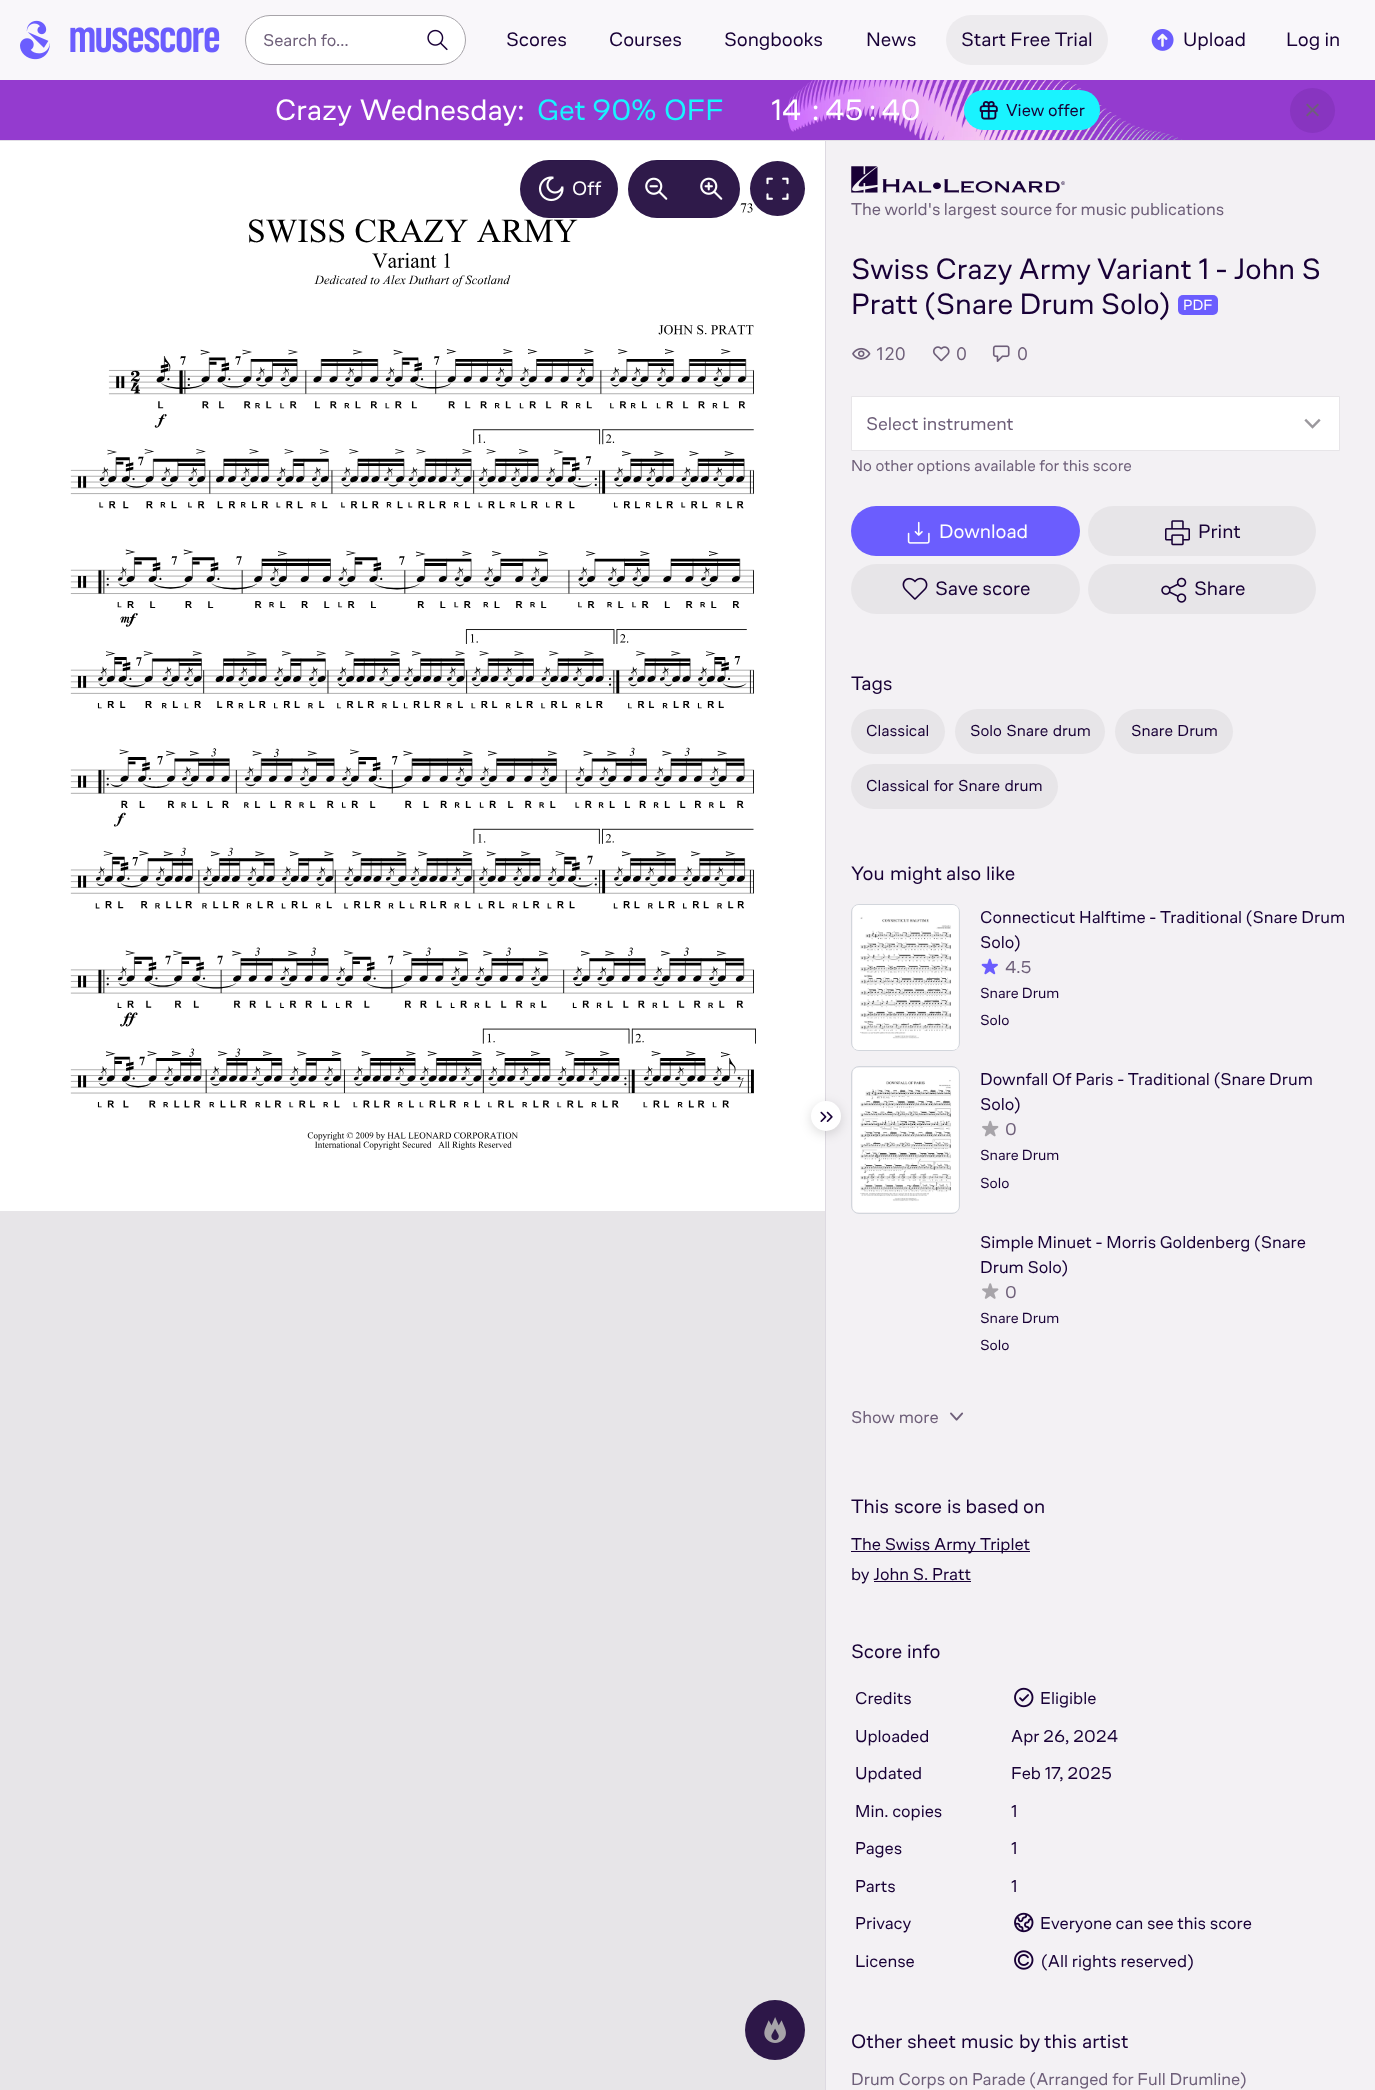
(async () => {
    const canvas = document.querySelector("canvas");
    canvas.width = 1375;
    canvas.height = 2090;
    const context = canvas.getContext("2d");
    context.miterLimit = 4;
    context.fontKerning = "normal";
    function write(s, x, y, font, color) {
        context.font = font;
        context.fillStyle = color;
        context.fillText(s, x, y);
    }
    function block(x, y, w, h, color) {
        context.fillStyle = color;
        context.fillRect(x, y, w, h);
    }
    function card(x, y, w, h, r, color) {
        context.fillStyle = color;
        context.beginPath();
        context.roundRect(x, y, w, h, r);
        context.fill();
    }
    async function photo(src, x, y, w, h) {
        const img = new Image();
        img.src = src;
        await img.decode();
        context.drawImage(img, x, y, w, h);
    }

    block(0, 0, 1375, 2090, "rgb(249, 247, 250)");
    block(0, 140, 1375, 1, "rgb(226, 222, 230)");
    await photo("media/1.png", 20, 20, 200, 40);
    context.fillStyle = "rgb(255, 255, 255)";
    context.beginPath();
    context.roundRect(245.5, 15.5, 220, 49, 24.5);
    context.fill();
    context.strokeStyle = "rgb(167, 164, 169)";
    context.stroke();
    write("Search fo…", 263, 46, "17.5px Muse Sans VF", "rgb(110, 95, 121)");
    await photo("media/2.png", 427, 29, 21, 22);
    write("Scores", 506, 46, "20px Muse Sans VF", "rgb(24, 0, 54)");
    write("Courses", 609, 46, "20px Muse Sans VF", "rgb(24, 0, 54)");
    write("Songbooks", 724, 46, "20px Muse Sans VF", "rgb(24, 0, 54)");
    write("News", 866, 46, "20px Muse Sans VF", "rgb(24, 0, 54)");
    card(946, 15, 162, 50, 25, "rgb(237, 235, 238)");
    write("Start Free Trial", 961, 46, "20px Muse Sans VF", "rgb(24, 0, 54)");
    await photo("media/3.png", 1151, 29, 23, 22);
    write("Upload", 1183, 46, "20px Muse Sans VF", "rgb(24, 0, 54)");
    write("Log in", 1286, 46, "20px Muse Sans VF", "rgb(24, 0, 54)");
    block(0, 80, 1375, 60, "rgb(148, 59, 207)");
    write("Crazy", 275, 120, "30px Muse Sans VF", "rgb(255, 255, 255)");
    write("Wednesday:", 360, 120, "30px Muse Sans VF", "rgb(255, 255, 255)");
    write("Get", 537, 120, "30px Muse Sans VF", "rgb(25, 243, 255)");
    write("90%", 592, 120, "30px Muse Sans VF", "rgb(25, 243, 255)");
    write("OFF", 664, 120, "30px Muse Sans VF", "rgb(25, 243, 255)");
    await photo("media/4.png", 787, 80, 396, 60);
    write("14", 771, 120, "30px Muse Sans VF", "rgb(255, 255, 255)");
    write(":", 812, 120, "30px Muse Sans VF", "rgb(255, 255, 255)");
    write("45", 825, 120, "30px Muse Sans VF", "rgb(255, 255, 255)");
    write(":", 869, 120, "30px Muse Sans VF", "rgb(255, 255, 255)");
    write("40", 881, 120, "30px Muse Sans VF", "rgb(255, 255, 255)");
    card(964, 90, 136, 40, 20, "rgb(25, 243, 255)");
    await photo("media/5.png", 979, 101, 19, 19);
    write("View offer", 1006, 116, "17.5px Muse Sans VF", "rgb(24, 0, 54)");
    context.fillStyle = "rgb(136, 53, 192)";
    context.beginPath();
    context.arc(1312.5, 110.5, 22.5, 0, Math.PI * 2);
    context.fill();
    await photo("media/6.png", 1306, 103, 13, 14);
    block(0, 1211, 825, 879, "rgb(231, 229, 232)");
    block(0, 141, 825, 1070, "rgb(255, 255, 255)");
    await photo("media/7.png", 70, 203, 686, 947);
    card(520, 160, 98, 58, 29, "rgb(47, 26, 74)");
    context.beginPath();
    context.roundRect(520.5, 160.5, 97, 57, 28.5);
    context.strokeStyle = "rgba(24, 0, 54, 0.1)";
    context.stroke();
    await photo("media/8.png", 538, 176, 26, 26);
    write("Off", 572, 195, "20px Muse Sans VF", "rgb(255, 255, 255)");
    card(628, 160, 112, 58, 29, "rgb(47, 26, 74)");
    context.beginPath();
    context.roundRect(628.5, 160.5, 111, 57, 28.5);
    context.stroke();
    await photo("media/9.png", 645, 177, 23, 23);
    await photo("media/10.png", 700, 177, 23, 23);
    context.beginPath();
    context.arc(777.5, 188.5, 27.5, 0, Math.PI * 2);
    context.fill();
    await photo("media/11.png", 766, 177, 23, 23);
    context.fillStyle = "rgb(45, 23, 72)";
    context.beginPath();
    context.arc(775, 2030, 30, 0, Math.PI * 2);
    context.fill();
    await photo("media/12.png", 764, 2017, 22, 26);
    block(826, 141, 549, 1949, "rgb(243, 241, 244)");
    block(825, 141, 1, 1949, "rgb(221, 217, 225)");
    context.beginPath();
    context.roundRect(851.5, 1066.5, 108, 147, 7.5);
    context.strokeStyle = "rgb(210, 214, 220)";
    context.stroke();
    await photo("media/25.png", 853, 1068, 106, 144);
    context.fillStyle = "rgba(0, 0, 0, 0.14)";
    context.filter = "blur(6px)";
    context.beginPath();
    context.roundRect(811, 1104, 30, 30, 15);
    context.fill();
    context.filter = "none";
    context.fillStyle = "rgb(255, 255, 255)";
    context.beginPath();
    context.arc(826, 1116, 15, 0, Math.PI * 2);
    context.fill();
    await photo("media/13.png", 820, 1111, 13, 11);
    await photo("media/14.png", 851, 166, 214, 27);
    context.wordSpacing = "-0.25px";
    write("The world's largest source for music publications", 851, 215, "17.5px Muse Sans VF", "rgb(110, 95, 121)");
    context.wordSpacing = "0px";
    write("Swiss Crazy Army Variant 1 - John S", 851, 279, "30px Muse Sans VF", "rgb(24, 0, 54)");
    write("Pratt (Snare Drum Solo)", 851, 314, "30px Muse Sans VF", "rgb(24, 0, 54)");
    card(1178, 295, 40, 20, 5, "rgb(107, 93, 254)");
    write("PDF", 1183, 310, "15px Muse Sans VF", "rgb(255, 255, 255)");
    await photo("media/15.png", 852, 347, 19, 13);
    write("120", 876, 360, "17.5px Inter", "rgb(110, 95, 121)");
    await photo("media/16.png", 932, 346, 18, 16);
    write("0", 956, 360, "17.5px Inter", "rgb(110, 95, 121)");
    await photo("media/17.png", 992, 345, 18, 17);
    write("0", 1017, 360, "17.5px Inter", "rgb(110, 95, 121)");
    context.fillStyle = "rgb(255, 255, 255)";
    context.beginPath();
    context.rect(851.5, 396.5, 488, 54);
    context.fill();
    context.strokeStyle = "rgb(231, 229, 232)";
    context.stroke();
    write("Select instrument", 866, 430, "18.75px Muse Sans VF", "rgb(110, 95, 121)");
    await photo("media/18.png", 1304, 418, 17, 11);
    write("No other options available for this score", 851, 471, "16.25px Muse Sans VF", "rgb(110, 95, 121)");
    card(851, 506, 229, 50, 25, "rgb(107, 93, 254)");
    await photo("media/19.png", 907, 521, 23, 23);
    write("Download", 939, 538, "20px Muse Sans VF", "rgb(255, 255, 255)");
    card(1088, 506, 228, 50, 25, "rgb(231, 229, 232)");
    await photo("media/20.png", 1165, 520, 25, 26);
    write("Print", 1198, 538, "20px Muse Sans VF", "rgb(24, 0, 54)");
    card(851, 564, 229, 50, 25, "rgb(231, 229, 232)");
    await photo("media/21.png", 902, 577, 26, 23);
    write("Save score", 935, 595, "20px Muse Sans VF", "rgb(24, 0, 54)");
    card(1088, 564, 228, 50, 25, "rgb(231, 229, 232)");
    await photo("media/22.png", 1161, 577, 26, 26);
    write("Share", 1194, 595, "20px Muse Sans VF", "rgb(24, 0, 54)");
    write("Tags", 851, 690, "20px Muse Sans VF", "rgb(24, 0, 54)");
    card(851, 709, 94, 45, 22.5, "rgb(231, 229, 232)");
    write("Classical", 866, 736, "16.25px Muse Sans VF", "rgb(24, 0, 54)");
    card(955, 709, 150, 45, 22.5, "rgb(231, 229, 232)");
    context.wordSpacing = "1px";
    write("Solo Snare drum", 970, 736, "16.25px Muse Sans VF", "rgb(24, 0, 54)");
    card(1115, 709, 118, 45, 22.5, "rgb(231, 229, 232)");
    write("Snare Drum", 1131, 736, "16.25px Muse Sans VF", "rgb(24, 0, 54)");
    card(851, 764, 207, 45, 22.5, "rgb(231, 229, 232)");
    write("Classical for Snare drum", 866, 791, "16.25px Muse Sans VF", "rgb(24, 0, 54)");
    context.wordSpacing = "0px";
    write("You", 851, 880, "20px Muse Sans VF", "rgb(24, 0, 54)");
    write("might", 890, 880, "20px Muse Sans VF", "rgb(24, 0, 54)");
    write("also", 946, 880, "20px Muse Sans VF", "rgb(24, 0, 54)");
    write("like", 986, 880, "20px Muse Sans VF", "rgb(24, 0, 54)");
    context.beginPath();
    context.roundRect(851.5, 904.5, 108, 146, 7.5);
    context.strokeStyle = "rgb(210, 214, 220)";
    context.stroke();
    await photo("media/23.png", 852, 905, 107, 145);
    write("Connecticut Halftime - Traditional (Snare Drum", 980, 923, "17.5px Muse Sans VF", "rgb(24, 0, 54)");
    write("Solo)", 980, 948, "17.5px Muse Sans VF", "rgb(24, 0, 54)");
    await photo("media/24.png", 981, 958, 17, 17);
    write("4.5", 1005, 973, "17.5px Muse Sans VF", "rgb(110, 95, 121)");
    write("Snare Drum", 980, 998, "15px Muse Sans VF", "rgb(24, 0, 54)");
    write("Solo", 980, 1025, "15px Muse Sans VF", "rgb(24, 0, 54)");
    write("Downfall Of Paris - Traditional (Snare Drum", 980, 1085, "17.5px Muse Sans VF", "rgb(24, 0, 54)");
    write("Solo)", 980, 1110, "17.5px Muse Sans VF", "rgb(24, 0, 54)");
    await photo("media/26.png", 982, 1120, 17, 17);
    write("0", 1005, 1135, "17.5px Muse Sans VF", "rgb(110, 95, 121)");
    write("Snare Drum", 980, 1160, "15px Muse Sans VF", "rgb(24, 0, 54)");
    write("Solo", 980, 1188, "15px Muse Sans VF", "rgb(24, 0, 54)");
    write("Simple Minuet - Morris Goldenberg (Snare", 980, 1248, "17.5px Muse Sans VF", "rgb(24, 0, 54)");
    write("Drum Solo)", 980, 1273, "17.5px Muse Sans VF", "rgb(24, 0, 54)");
    await photo("media/27.png", 982, 1283, 17, 16);
    write("0", 1005, 1298, "17.5px Muse Sans VF", "rgb(110, 95, 121)");
    write("Snare Drum", 980, 1323, "15px Muse Sans VF", "rgb(24, 0, 54)");
    write("Solo", 980, 1350, "15px Muse Sans VF", "rgb(24, 0, 54)");
    write("Show more", 851, 1423, "17.5px Muse Sans VF", "rgb(110, 95, 121)");
    await photo("media/28.png", 950, 1412, 14, 9);
    write("This", 851, 1513, "20px Muse Sans VF", "rgb(24, 0, 54)");
    write("score", 894, 1513, "20px Muse Sans VF", "rgb(24, 0, 54)");
    write("is based", 947, 1513, "20px Muse Sans VF", "rgb(24, 0, 54)");
    write("on", 1023, 1513, "20px Muse Sans VF", "rgb(24, 0, 54)");
    block(851, 1551, 125, 1, "rgb(24, 0, 54)");
    write("The Swiss Army", 851, 1550, "17.5px Muse Sans VF", "rgb(24, 0, 54)");
    block(976, 1551, 54, 1, "rgb(24, 0, 54)");
    write("Triplet", 980, 1550, "17.5px Muse Sans VF", "rgb(24, 0, 54)");
    write("by John S. Pratt", 851, 1580, "17.5px Muse Sans VF", "rgb(24, 0, 54)");
    block(874, 1581, 97, 1, "rgb(24, 0, 54)");
    write("Score", 851, 1658, "20px Muse Sans VF", "rgb(24, 0, 54)");
    write("info", 907, 1658, "20px Muse Sans VF", "rgb(24, 0, 54)");
    write("Credits", 855, 1704, "17.5px Muse Sans VF", "rgb(24, 0, 54)");
    await photo("media/29.png", 1014, 1687, 20, 21);
    write("Eligible", 1040, 1704, "17.5px Muse Sans VF", "rgb(24, 0, 54)");
    write("Uploaded", 855, 1742, "17.5px Muse Sans VF", "rgb(24, 0, 54)");
    write("Apr 26, 2024", 1011, 1742, "17.5px Muse Sans VF", "rgb(24, 0, 54)");
    write("Updated", 855, 1779, "17.5px Muse Sans VF", "rgb(24, 0, 54)");
    write("Feb 17, 2025", 1011, 1779, "17.5px Muse Sans VF", "rgb(24, 0, 54)");
    write("Min. copies", 855, 1817, "17.5px Muse Sans VF", "rgb(24, 0, 54)");
    write("1", 1011, 1817, "17.5px Muse Sans VF", "rgb(24, 0, 54)");
    write("Pages", 855, 1854, "17.5px Muse Sans VF", "rgb(24, 0, 54)");
    write("1", 1011, 1854, "17.5px Muse Sans VF", "rgb(24, 0, 54)");
    write("Parts", 855, 1892, "17.5px Muse Sans VF", "rgb(24, 0, 54)");
    write("1", 1011, 1892, "17.5px Muse Sans VF", "rgb(24, 0, 54)");
    write("Privacy", 855, 1929, "17.5px Muse Sans VF", "rgb(24, 0, 54)");
    await photo("media/30.png", 1014, 1912, 20, 21);
    write("Everyone can see this score", 1040, 1929, "17.5px Muse Sans VF", "rgb(24, 0, 54)");
    write("License", 855, 1967, "17.5px Muse Sans VF", "rgb(24, 0, 54)");
    await photo("media/31.png", 1014, 1950, 20, 20);
    write("(All rights reserved)", 1041, 1967, "17.5px Muse Sans VF", "rgb(24, 0, 54)");
    write("Other", 851, 2048, "20px Muse Sans VF", "rgb(24, 0, 54)");
    write("sheet", 907, 2048, "20px Muse Sans VF", "rgb(24, 0, 54)");
    write("music", 961, 2048, "20px Muse Sans VF", "rgb(24, 0, 54)");
    write("by", 1019, 2048, "20px Muse Sans VF", "rgb(24, 0, 54)");
    write("this", 1044, 2048, "20px Muse Sans VF", "rgb(24, 0, 54)");
    write("artist", 1082, 2048, "20px Muse Sans VF", "rgb(24, 0, 54)");
    write("Drum Corps on Parade (Arranged for Full Drumline)", 851, 2085, "17.5px Muse Sans VF", "rgb(110, 95, 121)");
})();
